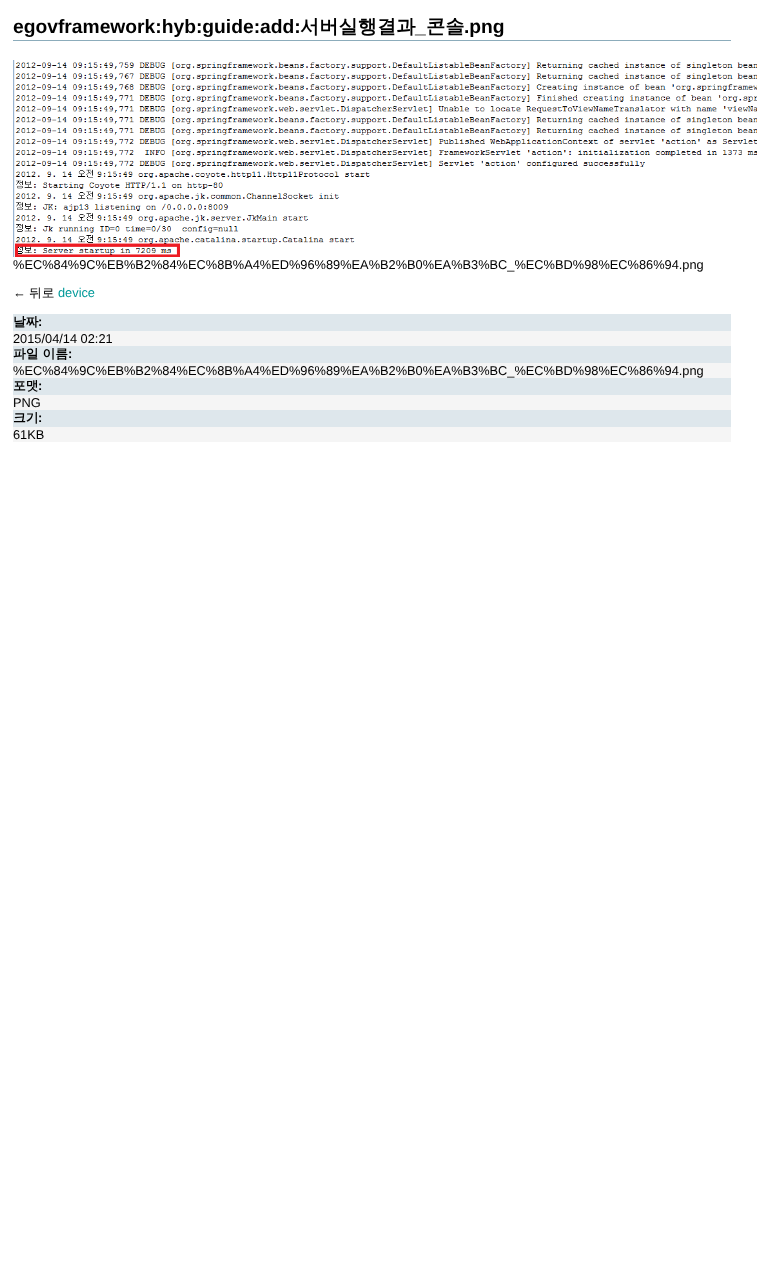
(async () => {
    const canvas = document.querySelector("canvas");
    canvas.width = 757;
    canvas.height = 1264;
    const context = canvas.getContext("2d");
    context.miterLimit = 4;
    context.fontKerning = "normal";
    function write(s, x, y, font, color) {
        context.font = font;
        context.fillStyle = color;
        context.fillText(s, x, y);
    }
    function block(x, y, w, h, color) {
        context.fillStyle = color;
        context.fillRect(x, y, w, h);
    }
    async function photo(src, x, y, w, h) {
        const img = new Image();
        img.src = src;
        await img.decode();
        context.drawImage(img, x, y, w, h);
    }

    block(0, 0, 757, 1264, "rgb(255, 255, 255)");
    block(13, 40, 718, 1, "rgb(140, 172, 187)");
    write("egovframework:hyb:guide:add:", 13, 33, "bold 19.25px Liberation Sans", "rgb(0, 0, 0)");
    write("서버실행결과", 300, 33, "bold 19.25px WenQuanYi Zen Hei", "rgb(0, 0, 0)");
    write("_", 415, 33, "bold 19.25px Liberation Sans", "rgb(0, 0, 0)");
    write("콘솔", 426, 33, "bold 19.25px WenQuanYi Zen Hei", "rgb(0, 0, 0)");
    write(".png", 464, 33, "bold 19.25px Liberation Sans", "rgb(0, 0, 0)");
    await photo("media/1.png", 13, 60, 744, 197);
    write("%EC%84%9C%EB%B2%84%EC%8B%A4%ED%96%89%EA%B2%B0%EA%B3%BC_%EC%BD%98%EC%86%94.png", 13, 269, "12.8px Liberation Sans", "rgb(0, 0, 0)");
    write("←", 13, 297, "12.8px Liberation Sans", "rgb(0, 0, 0)");
    write("뒤로", 29, 297, "500 12.8px WenQuanYi Zen Hei", "rgb(0, 0, 0)");
    write("device", 58, 297, "12.8px Liberation Sans", "rgb(0, 153, 153)");
    block(13, 314, 718, 17, "rgb(222, 231, 236)");
    write("날짜", 13, 326, "bold 12.8px WenQuanYi Zen Hei", "rgb(0, 0, 0)");
    write(":", 38, 326, "bold 12.8px Liberation Sans", "rgb(0, 0, 0)");
    block(13, 331, 718, 15, "rgb(245, 245, 245)");
    write("2015/04/14 02:21", 13, 343, "12.8px Liberation Sans", "rgb(0, 0, 0)");
    block(13, 346, 718, 17, "rgb(222, 231, 236)");
    write("파일 이름", 13, 358, "bold 12.8px WenQuanYi Zen Hei", "rgb(0, 0, 0)");
    write(":", 68, 358, "bold 12.8px Liberation Sans", "rgb(0, 0, 0)");
    block(13, 363, 718, 15, "rgb(245, 245, 245)");
    write("%EC%84%9C%EB%B2%84%EC%8B%A4%ED%96%89%EA%B2%B0%EA%B3%BC_%EC%BD%98%EC%86%94.png", 13, 375, "12.8px Liberation Sans", "rgb(0, 0, 0)");
    block(13, 378, 718, 17, "rgb(222, 231, 236)");
    write("포맷", 13, 390, "bold 12.8px WenQuanYi Zen Hei", "rgb(0, 0, 0)");
    write(":", 38, 390, "bold 12.8px Liberation Sans", "rgb(0, 0, 0)");
    block(13, 395, 718, 15, "rgb(245, 245, 245)");
    write("PNG", 13, 407, "12.8px Liberation Sans", "rgb(0, 0, 0)");
    block(13, 410, 718, 17, "rgb(222, 231, 236)");
    write("크기", 13, 422, "bold 12.8px WenQuanYi Zen Hei", "rgb(0, 0, 0)");
    write(":", 38, 422, "bold 12.8px Liberation Sans", "rgb(0, 0, 0)");
    block(13, 427, 718, 15, "rgb(245, 245, 245)");
    write("61KB", 13, 439, "12.8px Liberation Sans", "rgb(0, 0, 0)");
})();
